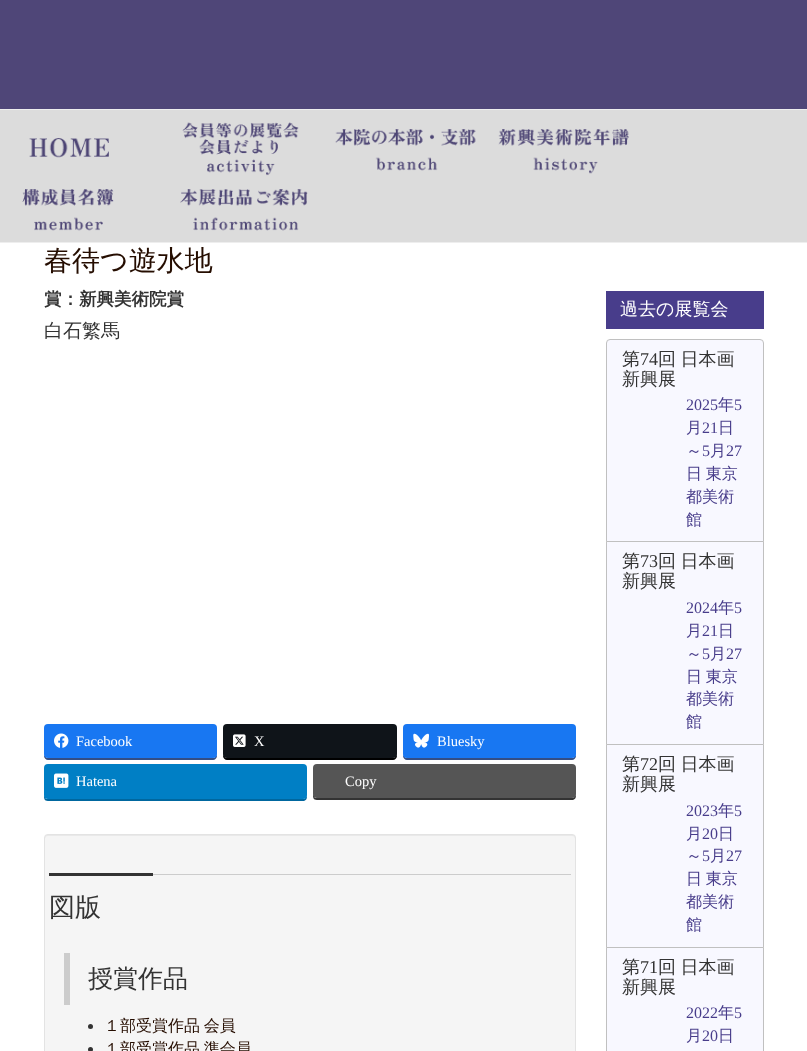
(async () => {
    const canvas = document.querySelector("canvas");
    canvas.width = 807;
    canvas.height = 1051;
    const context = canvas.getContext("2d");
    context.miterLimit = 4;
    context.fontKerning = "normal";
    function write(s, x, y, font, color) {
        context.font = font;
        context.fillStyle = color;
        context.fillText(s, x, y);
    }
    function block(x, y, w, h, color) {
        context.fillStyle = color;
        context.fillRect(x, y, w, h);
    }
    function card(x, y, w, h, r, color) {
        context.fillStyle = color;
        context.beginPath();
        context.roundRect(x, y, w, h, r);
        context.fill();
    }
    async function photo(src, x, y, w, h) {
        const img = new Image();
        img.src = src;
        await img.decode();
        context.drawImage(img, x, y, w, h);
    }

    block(0, 0, 807, 1051, "rgb(255, 255, 255)");
    block(0, 0, 807, 109, "rgb(79, 70, 120)");
    block(0, 242, 807, 1, "rgb(238, 238, 238)");
    block(0, 110, 807, 132, "rgb(220, 220, 220)");
    block(0, 109, 807, 1, "rgb(238, 238, 238)");
    await photo("media/1.png", 29, 138, 80, 20);
    await photo("media/2.png", 182, 122, 117, 54);
    await photo("media/3.png", 335, 129, 141, 42);
    await photo("media/4.png", 498, 129, 131, 45);
    await photo("media/5.png", 22, 189, 92, 42);
    await photo("media/6.png", 180, 189, 128, 42);
    write("春待つ遊水地", 44, 270, "500 28px WenQuanYi Zen Hei", "rgb(37, 13, 0)");
    write("賞：新興美術院賞", 44, 305, "bold 17.5px WenQuanYi Zen Hei", "rgb(51, 51, 51)");
    write("白石繁馬", 44, 337, "500 19px WenQuanYi Zen Hei", "rgb(51, 51, 51)");
    context.fillStyle = "rgb(52, 78, 132)";
    context.beginPath();
    context.moveTo(44, 754);
    context.lineTo(44, 756);
    context.bezierCurveTo(44, 758, 46, 760, 48, 760);
    context.lineTo(213, 760);
    context.bezierCurveTo(215, 760, 217, 758, 217, 756);
    context.lineTo(217, 754);
    context.bezierCurveTo(217, 756, 215, 758, 213, 758);
    context.lineTo(48, 758);
    context.bezierCurveTo(46, 758, 44, 756, 44, 754);
    context.closePath();
    context.fill();
    card(44, 724, 173, 34, 4, "rgb(24, 119, 242)");
    await photo("media/7.png", 54, 733, 15, 15);
    write("Facebook", 76, 746, "14.5px Liberation Serif", "rgb(255, 255, 255)");
    context.fillStyle = "rgb(0, 0, 0)";
    context.beginPath();
    context.moveTo(223, 754);
    context.lineTo(223, 756);
    context.bezierCurveTo(223, 758, 225, 760, 227, 760);
    context.lineTo(393, 760);
    context.bezierCurveTo(395, 760, 397, 758, 397, 756);
    context.lineTo(397, 754);
    context.bezierCurveTo(397, 756, 395, 758, 393, 758);
    context.lineTo(227, 758);
    context.bezierCurveTo(225, 758, 223, 756, 223, 754);
    context.closePath();
    context.fill();
    card(223, 724, 174, 34, 4, "rgb(15, 20, 25)");
    await photo("media/8.png", 233, 734, 13, 13);
    write("X", 254, 746, "14.5px Liberation Serif", "rgb(255, 255, 255)");
    context.fillStyle = "rgb(52, 78, 132)";
    context.beginPath();
    context.moveTo(403, 754);
    context.lineTo(403, 756);
    context.bezierCurveTo(403, 758, 405, 760, 407, 760);
    context.lineTo(572, 760);
    context.bezierCurveTo(574, 760, 576, 758, 576, 756);
    context.lineTo(576, 754);
    context.bezierCurveTo(576, 756, 574, 758, 572, 758);
    context.lineTo(407, 758);
    context.bezierCurveTo(405, 758, 403, 756, 403, 754);
    context.closePath();
    context.fill();
    card(403, 724, 173, 34, 4, "rgb(24, 119, 242)");
    await photo("media/9.png", 413, 733, 16, 15);
    write("Bluesky", 437, 746, "14.5px Liberation Serif", "rgb(255, 255, 255)");
    context.fillStyle = "rgb(0, 103, 159)";
    context.beginPath();
    context.moveTo(44, 795);
    context.bezierCurveTo(44, 798, 44, 801, 48, 801);
    context.lineTo(304, 801);
    context.bezierCurveTo(307, 800, 307, 798, 307, 795);
    context.bezierCurveTo(307, 797, 305, 799, 303, 799);
    context.lineTo(46, 799);
    context.lineTo(45, 797);
    context.closePath();
    context.fill();
    card(44, 764, 263, 35, 4, "rgb(0, 127, 197)");
    await photo("media/10.png", 54, 773, 15, 15);
    write("Hatena", 76, 786, "14.5px Liberation Serif", "rgb(255, 255, 255)");
    context.fillStyle = "rgb(51, 51, 51)";
    context.beginPath();
    context.moveTo(313, 794);
    context.bezierCurveTo(313, 797, 313, 800, 317, 800);
    context.lineTo(573, 800);
    context.bezierCurveTo(576, 799, 576, 797, 576, 794);
    context.bezierCurveTo(576, 796, 574, 798, 572, 798);
    context.lineTo(315, 798);
    context.lineTo(314, 796);
    context.closePath();
    context.fill();
    card(313, 764, 263, 34, 4, "rgb(85, 85, 85)");
    write("Copy", 345, 786, "14.5px Liberation Serif", "rgb(255, 255, 255)");
    card(44, 834, 532, 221, 4, "rgb(245, 245, 245)");
    context.fillStyle = "rgb(233, 233, 233)";
    context.beginPath();
    context.moveTo(48, 836);
    context.lineTo(572, 836);
    context.bezierCurveTo(574, 836, 575, 837, 575, 839);
    context.lineTo(575, 838);
    context.bezierCurveTo(575, 836, 574, 835, 572, 835);
    context.lineTo(48, 835);
    context.bezierCurveTo(46, 835, 45, 836, 45, 838);
    context.lineTo(45, 839);
    context.bezierCurveTo(45, 837, 46, 836, 48, 836);
    context.closePath();
    context.fill();
    context.beginPath();
    context.roundRect(44.5, 834.5, 531, 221, 3.5);
    context.strokeStyle = "rgb(227, 227, 227)";
    context.stroke();
    block(153, 874, 418, 1, "rgb(204, 204, 204)");
    block(49, 873, 104, 3, "rgb(51, 51, 51)");
    write("図版", 49, 916, "500 26px WenQuanYi Zen Hei", "rgb(51, 51, 51)");
    block(64, 953, 6, 52, "rgb(204, 204, 204)");
    write("授賞作品", 88, 987, "500 25px WenQuanYi Zen Hei", "rgb(51, 51, 51)");
    context.beginPath();
    context.arc(90.5, 1026.5, 2.5, 0, Math.PI * 2);
    context.fill();
    context.wordSpacing = "-1px";
    write("１部受賞作品 会員", 104, 1031, "500 16px WenQuanYi Zen Hei", "rgb(37, 13, 0)");
    context.fillStyle = "rgb(51, 51, 51)";
    context.beginPath();
    context.arc(90.5, 1049.5, 2.5, 0, Math.PI * 2);
    context.fill();
    write("１部受賞作品 準会員", 104, 1054, "500 16px WenQuanYi Zen Hei", "rgb(37, 13, 0)");
    block(606, 291, 158, 38, "rgb(72, 61, 139)");
    context.wordSpacing = "0px";
    write("過去の展覧会", 620, 315, "500 18px WenQuanYi Zen Hei", "rgb(255, 255, 255)");
    context.fillStyle = "rgb(248, 248, 255)";
    context.beginPath();
    context.roundRect(606.5, 339.5, 157, 202, [3.5, 3.5, 0, 0]);
    context.fill();
    context.strokeStyle = "rgb(192, 192, 192)";
    context.stroke();
    write("第", 622, 365, "500 18px WenQuanYi Zen Hei", "rgb(51, 51, 51)");
    write("74", 640, 365, "18px Liberation Serif", "rgb(51, 51, 51)");
    context.wordSpacing = "-1px";
    write("回 日本画", 658, 365, "500 18px WenQuanYi Zen Hei", "rgb(51, 51, 51)");
    context.wordSpacing = "0px";
    write("新興展", 622, 385, "500 18px WenQuanYi Zen Hei", "rgb(51, 51, 51)");
    write("2025", 686, 410, "16px Liberation Serif", "rgb(72, 61, 139)");
    write("年", 718, 410, "500 16px WenQuanYi Zen Hei", "rgb(72, 61, 139)");
    write("5", 734, 410, "16px Liberation Serif", "rgb(72, 61, 139)");
    write("月", 686, 433, "500 16px WenQuanYi Zen Hei", "rgb(72, 61, 139)");
    write("21", 702, 433, "16px Liberation Serif", "rgb(72, 61, 139)");
    write("日", 718, 433, "500 16px WenQuanYi Zen Hei", "rgb(72, 61, 139)");
    write("～", 686, 456, "500 16px WenQuanYi Zen Hei", "rgb(72, 61, 139)");
    write("5", 702, 456, "16px Liberation Serif", "rgb(72, 61, 139)");
    write("月", 710, 456, "500 16px WenQuanYi Zen Hei", "rgb(72, 61, 139)");
    write("27", 726, 456, "16px Liberation Serif", "rgb(72, 61, 139)");
    context.wordSpacing = "-1px";
    write("日 東京", 686, 479, "500 16px WenQuanYi Zen Hei", "rgb(72, 61, 139)");
    context.wordSpacing = "0px";
    write("都美術", 686, 502, "500 16px WenQuanYi Zen Hei", "rgb(72, 61, 139)");
    write("館", 686, 525, "500 16px WenQuanYi Zen Hei", "rgb(72, 61, 139)");
    context.fillStyle = "rgb(248, 248, 255)";
    context.beginPath();
    context.rect(606.5, 541.5, 157, 203);
    context.fill();
    context.stroke();
    write("第", 622, 567, "500 18px WenQuanYi Zen Hei", "rgb(51, 51, 51)");
    write("73", 640, 567, "18px Liberation Serif", "rgb(51, 51, 51)");
    context.wordSpacing = "-1px";
    write("回 日本画", 658, 567, "500 18px WenQuanYi Zen Hei", "rgb(51, 51, 51)");
    context.wordSpacing = "0px";
    write("新興展", 622, 587, "500 18px WenQuanYi Zen Hei", "rgb(51, 51, 51)");
    write("2024", 686, 613, "16px Liberation Serif", "rgb(72, 61, 139)");
    write("年", 718, 613, "500 16px WenQuanYi Zen Hei", "rgb(72, 61, 139)");
    write("5", 734, 613, "16px Liberation Serif", "rgb(72, 61, 139)");
    write("月", 686, 636, "500 16px WenQuanYi Zen Hei", "rgb(72, 61, 139)");
    write("21", 702, 636, "16px Liberation Serif", "rgb(72, 61, 139)");
    write("日", 718, 636, "500 16px WenQuanYi Zen Hei", "rgb(72, 61, 139)");
    write("～", 686, 659, "500 16px WenQuanYi Zen Hei", "rgb(72, 61, 139)");
    write("5", 702, 659, "16px Liberation Serif", "rgb(72, 61, 139)");
    write("月", 710, 659, "500 16px WenQuanYi Zen Hei", "rgb(72, 61, 139)");
    write("27", 726, 659, "16px Liberation Serif", "rgb(72, 61, 139)");
    context.wordSpacing = "-1px";
    write("日 東京", 686, 682, "500 16px WenQuanYi Zen Hei", "rgb(72, 61, 139)");
    context.wordSpacing = "0px";
    write("都美術", 686, 704, "500 16px WenQuanYi Zen Hei", "rgb(72, 61, 139)");
    write("館", 686, 727, "500 16px WenQuanYi Zen Hei", "rgb(72, 61, 139)");
    context.fillStyle = "rgb(248, 248, 255)";
    context.beginPath();
    context.rect(606.5, 744.5, 157, 203);
    context.fill();
    context.stroke();
    write("第", 622, 770, "500 18px WenQuanYi Zen Hei", "rgb(51, 51, 51)");
    write("72", 640, 770, "18px Liberation Serif", "rgb(51, 51, 51)");
    context.wordSpacing = "-1px";
    write("回 日本画", 658, 770, "500 18px WenQuanYi Zen Hei", "rgb(51, 51, 51)");
    context.wordSpacing = "0px";
    write("新興展", 622, 790, "500 18px WenQuanYi Zen Hei", "rgb(51, 51, 51)");
    write("2023", 686, 816, "16px Liberation Serif", "rgb(72, 61, 139)");
    write("年", 718, 816, "500 16px WenQuanYi Zen Hei", "rgb(72, 61, 139)");
    write("5", 734, 816, "16px Liberation Serif", "rgb(72, 61, 139)");
    write("月", 686, 839, "500 16px WenQuanYi Zen Hei", "rgb(72, 61, 139)");
    write("20", 702, 839, "16px Liberation Serif", "rgb(72, 61, 139)");
    write("日", 718, 839, "500 16px WenQuanYi Zen Hei", "rgb(72, 61, 139)");
    write("～", 686, 861, "500 16px WenQuanYi Zen Hei", "rgb(72, 61, 139)");
    write("5", 702, 861, "16px Liberation Serif", "rgb(72, 61, 139)");
    write("月", 710, 861, "500 16px WenQuanYi Zen Hei", "rgb(72, 61, 139)");
    write("27", 726, 861, "16px Liberation Serif", "rgb(72, 61, 139)");
    context.wordSpacing = "-1px";
    write("日 東京", 686, 884, "500 16px WenQuanYi Zen Hei", "rgb(72, 61, 139)");
    context.wordSpacing = "0px";
    write("都美術", 686, 907, "500 16px WenQuanYi Zen Hei", "rgb(72, 61, 139)");
    write("館", 686, 930, "500 16px WenQuanYi Zen Hei", "rgb(72, 61, 139)");
    context.fillStyle = "rgb(248, 248, 255)";
    context.beginPath();
    context.rect(606.5, 947.5, 157, 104);
    context.fill();
    context.stroke();
    write("第", 622, 973, "500 18px WenQuanYi Zen Hei", "rgb(51, 51, 51)");
    write("71", 640, 973, "18px Liberation Serif", "rgb(51, 51, 51)");
    context.wordSpacing = "-1px";
    write("回 日本画", 658, 973, "500 18px WenQuanYi Zen Hei", "rgb(51, 51, 51)");
    context.wordSpacing = "0px";
    write("新興展", 622, 993, "500 18px WenQuanYi Zen Hei", "rgb(51, 51, 51)");
    write("2022", 686, 1018, "16px Liberation Serif", "rgb(72, 61, 139)");
    write("年", 718, 1018, "500 16px WenQuanYi Zen Hei", "rgb(72, 61, 139)");
    write("5", 734, 1018, "16px Liberation Serif", "rgb(72, 61, 139)");
    write("月", 686, 1041, "500 16px WenQuanYi Zen Hei", "rgb(72, 61, 139)");
    write("20", 702, 1041, "16px Liberation Serif", "rgb(72, 61, 139)");
    write("日", 718, 1041, "500 16px WenQuanYi Zen Hei", "rgb(72, 61, 139)");
})();
